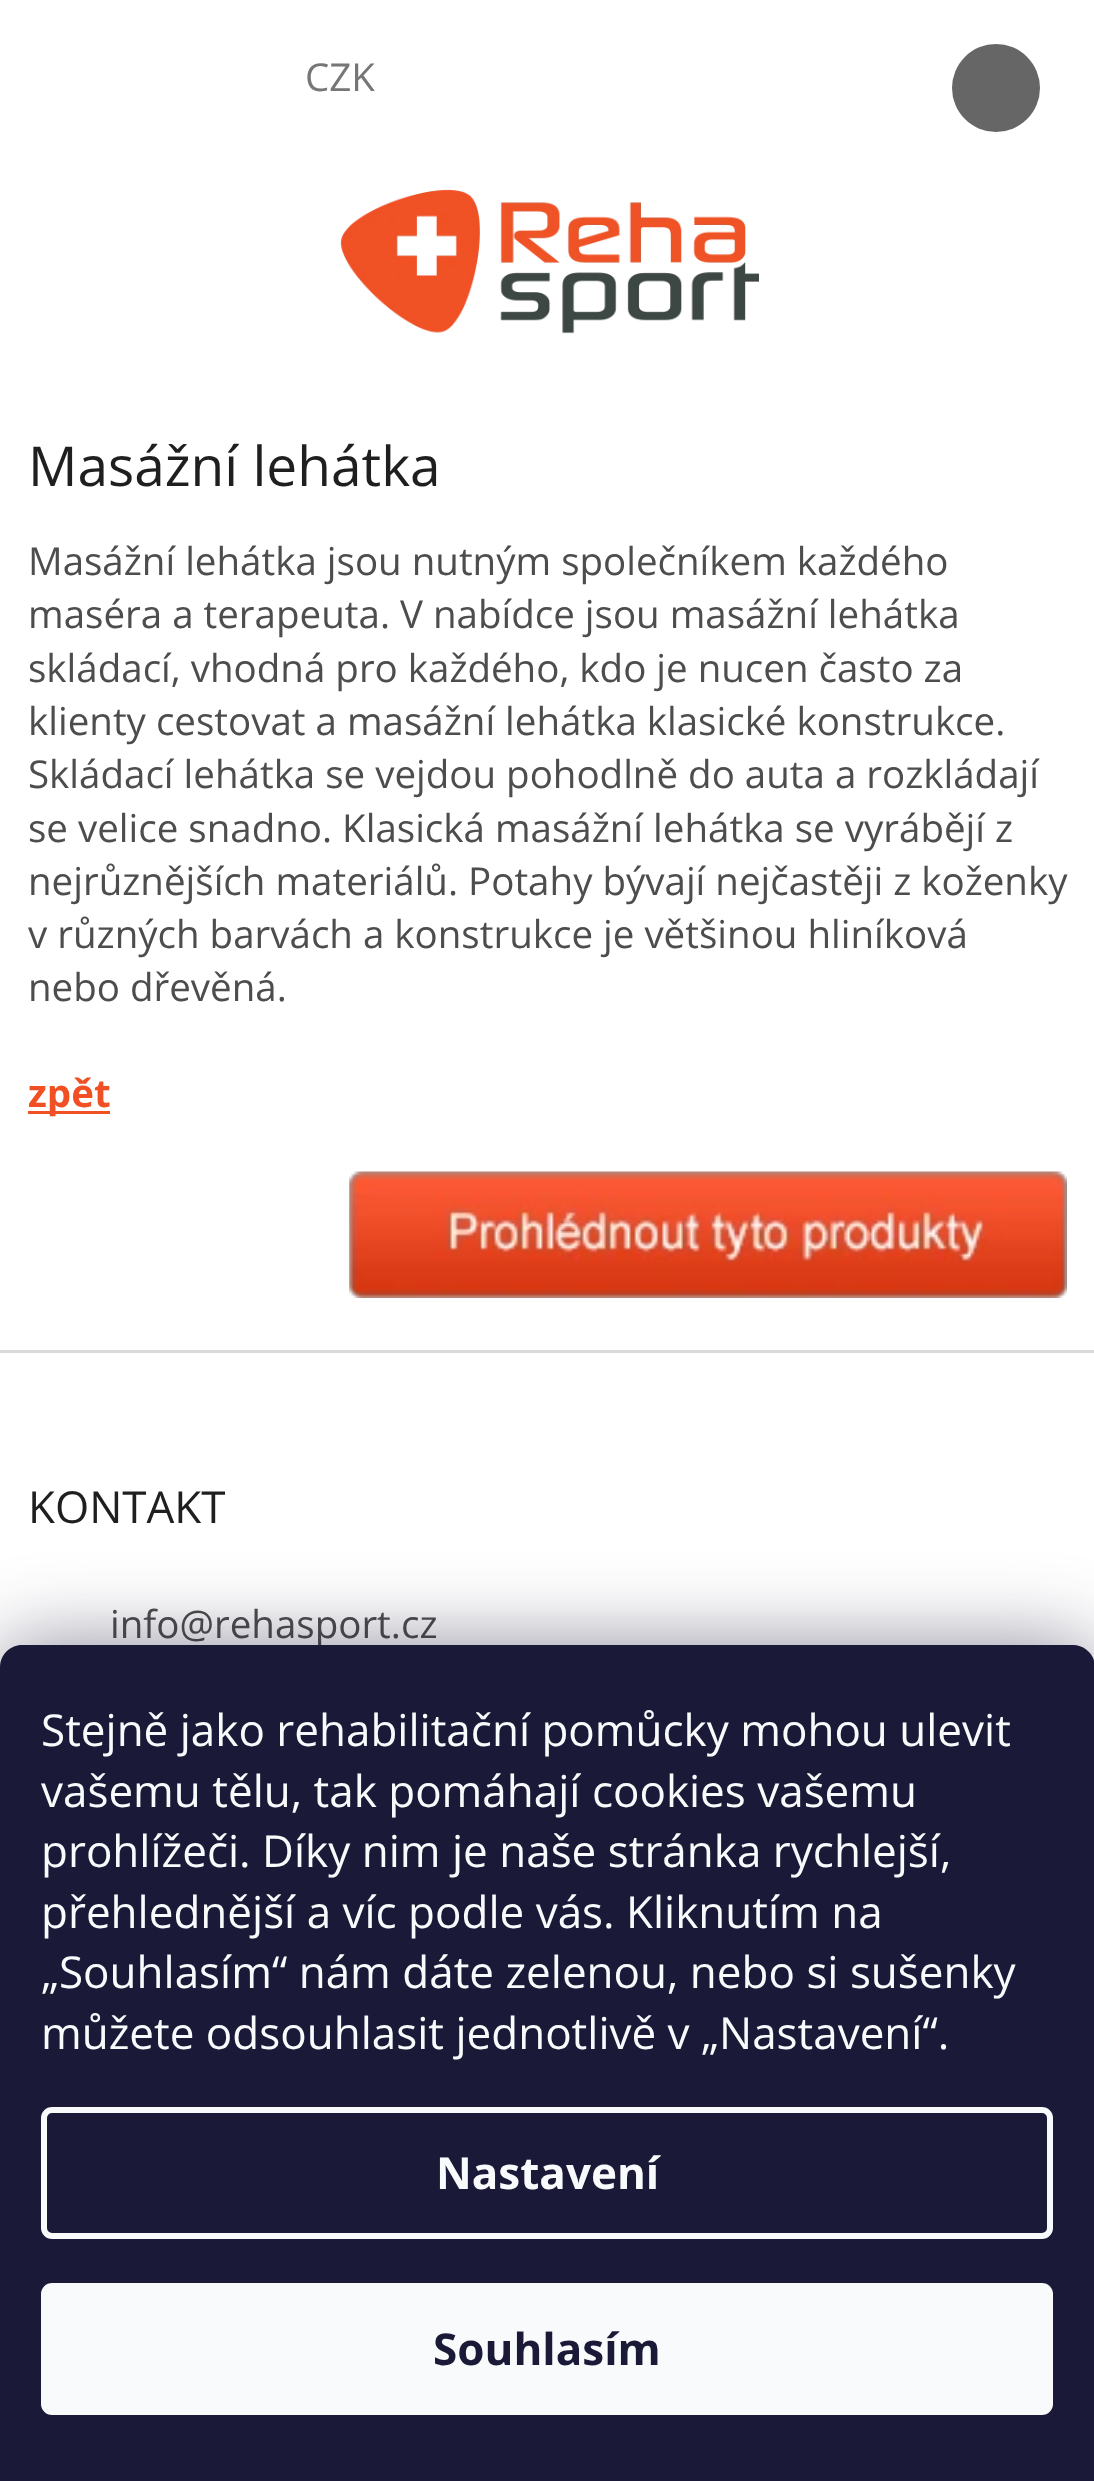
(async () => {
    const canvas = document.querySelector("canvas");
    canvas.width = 1094;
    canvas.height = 2481;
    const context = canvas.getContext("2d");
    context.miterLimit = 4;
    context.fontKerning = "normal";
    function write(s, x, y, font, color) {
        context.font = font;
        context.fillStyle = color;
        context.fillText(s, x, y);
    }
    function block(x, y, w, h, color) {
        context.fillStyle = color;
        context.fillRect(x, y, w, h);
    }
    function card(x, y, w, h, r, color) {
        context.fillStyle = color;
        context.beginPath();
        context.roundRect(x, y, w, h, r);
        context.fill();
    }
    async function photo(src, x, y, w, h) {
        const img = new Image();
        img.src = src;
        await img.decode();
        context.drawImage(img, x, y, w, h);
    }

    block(0, 0, 1094, 2481, "rgb(255, 255, 255)");
    write("CZK", 305, 91, "38.5px Open Sans", "rgb(118, 118, 118)");
    context.fillStyle = "rgb(102, 102, 102)";
    context.beginPath();
    context.arc(996, 88, 44, 0, Math.PI * 2);
    context.fill();
    await photo("media/1.png", 340, 189, 419, 145);
    write("Masážní lehátka", 28, 486, "55px Open Sans", "rgb(31, 31, 31)");
    write("Masážní lehátka jsou nutným společníkem každého", 28, 575, "38.5px Open Sans", "rgb(77, 77, 77)");
    write("maséra a terapeuta. V nabídce jsou masážní lehátka", 28, 628, "38.5px Open Sans", "rgb(77, 77, 77)");
    write("skládací, vhodná pro každého, kdo je nucen často za", 28, 682, "38.5px Open Sans", "rgb(77, 77, 77)");
    write("klienty cestovat a masážní lehátka klasické konstrukce.", 28, 735, "38.5px Open Sans", "rgb(77, 77, 77)");
    write("Skládací lehátka se vejdou pohodlně do auta a rozkládají", 28, 788, "38.5px Open Sans", "rgb(77, 77, 77)");
    write("se velice snadno. Klasická masážní lehátka se vyrábějí z", 28, 842, "38.5px Open Sans", "rgb(77, 77, 77)");
    write("nejrůznějších materiálů. Potahy bývají nejčastěji z koženky", 28, 895, "38.5px Open Sans", "rgb(77, 77, 77)");
    write("v různých barvách a konstrukce je většinou hliníková", 28, 948, "38.5px Open Sans", "rgb(77, 77, 77)");
    write("nebo dřevěná.", 28, 1001, "38.5px Open Sans", "rgb(77, 77, 77)");
    block(28, 1111, 82, 3, "rgb(240, 80, 36)");
    write("zpět", 28, 1107, "bold 38.5px Open Sans", "rgb(240, 80, 36)");
    await photo("media/2.png", 349, 1171, 718, 127);
    block(0, 1350, 1094, 3, "rgb(218, 218, 218)");
    write("KONTAKT", 28, 1523, "44px Open Sans", "rgb(31, 31, 31)");
    write("info@rehasport.cz", 110, 1638, "38.5px Open Sans", "rgb(77, 77, 77)");
    context.fillStyle = "rgba(27, 25, 57, 0.5)";
    context.filter = "blur(41px)";
    context.beginPath();
    context.roundRect(0, 1645, 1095, 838, 22);
    context.fill();
    context.filter = "none";
    context.fillStyle = "rgb(26, 25, 55)";
    context.beginPath();
    context.moveTo(22, 1645);
    context.lineTo(1073, 1645);
    context.bezierCurveTo(1085, 1645, 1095, 1655, 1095, 1667);
    context.lineTo(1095, 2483);
    context.lineTo(0, 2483);
    context.lineTo(0, 1667);
    context.bezierCurveTo(0, 1655, 10, 1645, 22, 1645);
    context.closePath();
    context.fill();
    write("Stejně jako rehabilitační pomůcky mohou ulevit", 41, 1746, "44px Open Sans", "rgb(248, 250, 251)");
    write("vašemu tělu, tak pomáhají cookies vašemu", 41, 1807, "44px Open Sans", "rgb(248, 250, 251)");
    write("prohlížeči. Díky nim je naše stránka rychlejší,", 41, 1867, "44px Open Sans", "rgb(248, 250, 251)");
    write("přehlednější a víc podle vás. Kliknutím na", 41, 1928, "44px Open Sans", "rgb(248, 250, 251)");
    write("„Souhlasím“ nám dáte zelenou, nebo si sušenky", 41, 1988, "44px Open Sans", "rgb(248, 250, 251)");
    write("můžete odsouhlasit jednotlivě v „Nastavení“.", 41, 2049, "44px Open Sans", "rgb(248, 250, 251)");
    context.beginPath();
    context.roundRect(44, 2110, 1006, 126, 8);
    context.strokeStyle = "rgb(248, 250, 251)";
    context.lineWidth = 6;
    context.stroke();
    write("Nastavení", 436, 2189, "bold 44px Open Sans", "rgb(248, 250, 251)");
    card(41, 2283, 1012, 132, 11, "rgb(248, 250, 251)");
    write("Souhlasím", 433, 2365, "bold 44px Open Sans", "rgb(26, 25, 55)");
})();
